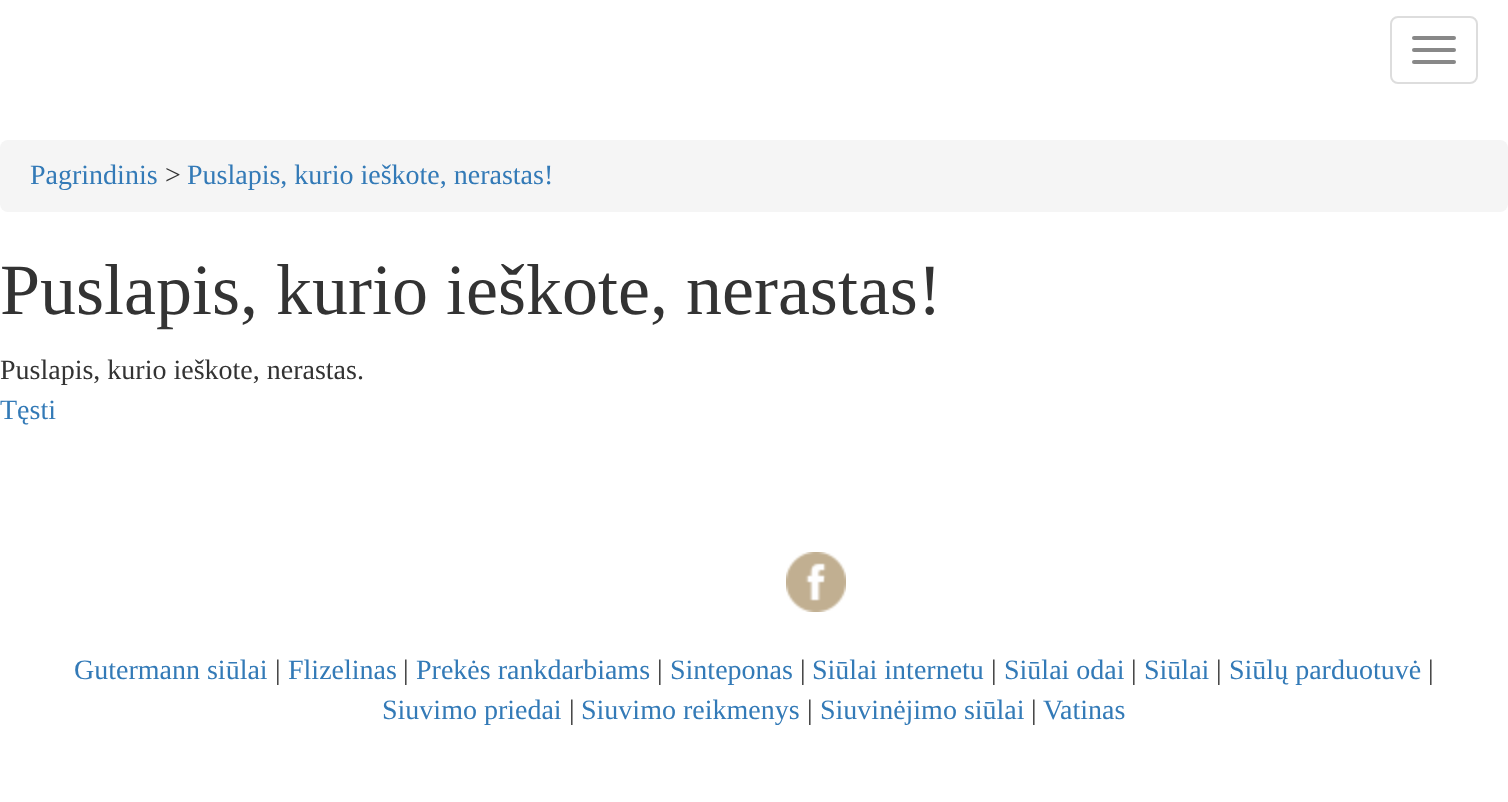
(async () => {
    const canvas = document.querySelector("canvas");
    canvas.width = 1508;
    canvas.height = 802;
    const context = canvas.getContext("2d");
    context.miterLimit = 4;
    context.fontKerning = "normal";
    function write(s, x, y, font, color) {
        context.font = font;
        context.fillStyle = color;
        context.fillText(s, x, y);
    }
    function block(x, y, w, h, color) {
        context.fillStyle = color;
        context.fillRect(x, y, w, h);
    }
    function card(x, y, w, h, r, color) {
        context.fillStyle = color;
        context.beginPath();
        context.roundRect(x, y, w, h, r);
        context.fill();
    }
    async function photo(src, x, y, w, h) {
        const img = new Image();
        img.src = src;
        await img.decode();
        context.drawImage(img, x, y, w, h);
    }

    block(0, 0, 1508, 802, "rgb(255, 255, 255)");
    context.beginPath();
    context.roundRect(1391, 17, 86, 66, 7);
    context.strokeStyle = "rgb(221, 221, 221)";
    context.lineWidth = 2;
    context.stroke();
    card(1412, 36, 44, 4, 2, "rgb(136, 136, 136)");
    card(1412, 48, 44, 4, 2, "rgb(136, 136, 136)");
    card(1412, 60, 44, 4, 2, "rgb(136, 136, 136)");
    card(0, 140, 1508, 72, 8, "rgb(245, 245, 245)");
    write("Pagrindinis", 30, 184, "28px Liberation Serif", "rgb(51, 122, 183)");
    write(">", 165, 184, "28px Liberation Serif", "rgb(51, 51, 51)");
    write("Puslapis, kurio ieškote, nerastas!", 187, 184, "28px Liberation Serif", "rgb(51, 122, 183)");
    write("Puslapis, kurio ieškote, nerastas!", 0, 314, "72px Liberation Serif", "rgb(51, 51, 51)");
    write("Puslapis, kurio ieškote, nerastas.", 0, 379, "28px Liberation Serif", "rgb(51, 51, 51)");
    write("Tęsti", 0, 419, "28px Liberation Serif", "rgb(51, 122, 183)");
    await photo("media/1.png", 786, 552, 60, 60);
    write("Gutermann siūlai", 74, 679, "28px Liberation Serif", "rgb(51, 122, 183)");
    write("|", 275, 679, "28px Liberation Serif", "rgb(51, 51, 51)");
    write("Flizelinas", 288, 679, "28px Liberation Serif", "rgb(51, 122, 183)");
    write("|", 403, 679, "28px Liberation Serif", "rgb(51, 51, 51)");
    write("Prekės rankdarbiams", 416, 679, "28px Liberation Serif", "rgb(51, 122, 183)");
    write("|", 657, 679, "28px Liberation Serif", "rgb(51, 51, 51)");
    write("Sinteponas", 670, 679, "28px Liberation Serif", "rgb(51, 122, 183)");
    write("|", 800, 679, "28px Liberation Serif", "rgb(51, 51, 51)");
    write("Siūlai internetu", 812, 679, "28px Liberation Serif", "rgb(51, 122, 183)");
    write("|", 991, 679, "28px Liberation Serif", "rgb(51, 51, 51)");
    write("Siūlai odai", 1004, 679, "28px Liberation Serif", "rgb(51, 122, 183)");
    write("|", 1131, 679, "28px Liberation Serif", "rgb(51, 51, 51)");
    write("Siūlai", 1144, 679, "28px Liberation Serif", "rgb(51, 122, 183)");
    write("|", 1216, 679, "28px Liberation Serif", "rgb(51, 51, 51)");
    write("Siūlų parduotuvė", 1229, 679, "28px Liberation Serif", "rgb(51, 122, 183)");
    write("|", 1428, 679, "28px Liberation Serif", "rgb(51, 51, 51)");
    write("Siuvimo priedai", 382, 719, "28px Liberation Serif", "rgb(51, 122, 183)");
    write("|", 569, 719, "28px Liberation Serif", "rgb(51, 51, 51)");
    write("Siuvimo reikmenys", 581, 719, "28px Liberation Serif", "rgb(51, 122, 183)");
    write("|", 807, 719, "28px Liberation Serif", "rgb(51, 51, 51)");
    write("Siuvinėjimo siūlai", 820, 719, "28px Liberation Serif", "rgb(51, 122, 183)");
    write("|", 1031, 719, "28px Liberation Serif", "rgb(51, 51, 51)");
    write("Vatinas", 1043, 719, "28px Liberation Serif", "rgb(51, 122, 183)");
})();
